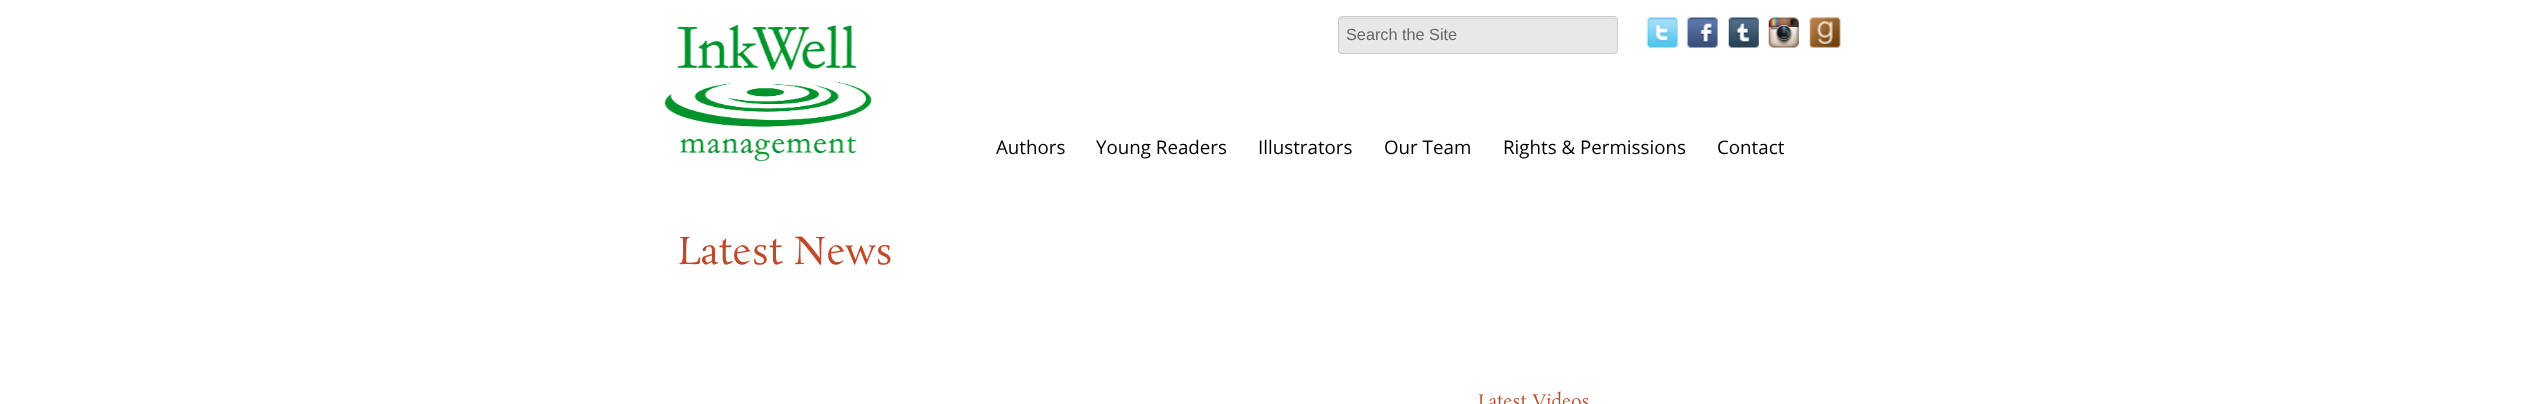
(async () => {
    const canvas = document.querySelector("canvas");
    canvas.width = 2531;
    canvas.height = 404;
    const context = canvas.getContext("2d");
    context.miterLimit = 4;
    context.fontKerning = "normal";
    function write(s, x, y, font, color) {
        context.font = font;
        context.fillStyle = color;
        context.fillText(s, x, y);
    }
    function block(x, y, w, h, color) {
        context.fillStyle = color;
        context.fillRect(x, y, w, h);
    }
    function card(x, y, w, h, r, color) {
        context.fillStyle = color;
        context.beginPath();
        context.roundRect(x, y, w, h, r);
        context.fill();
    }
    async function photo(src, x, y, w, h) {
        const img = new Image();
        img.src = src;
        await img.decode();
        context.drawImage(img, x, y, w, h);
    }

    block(0, 0, 2531, 404, "rgb(255, 255, 255)");
    await photo("media/1.png", 664, 25, 208, 136);
    card(1338, 16, 280, 38, 4, "rgb(232, 232, 232)");
    context.fillStyle = "rgb(215, 215, 215)";
    context.beginPath();
    context.moveTo(1341, 19);
    context.lineTo(1614, 19);
    context.bezierCurveTo(1615, 19, 1616, 20, 1616, 21);
    context.bezierCurveTo(1616, 19, 1615, 18, 1614, 18);
    context.lineTo(1342, 18);
    context.bezierCurveTo(1340, 18, 1339, 19, 1339, 21);
    context.bezierCurveTo(1339, 20, 1340, 19, 1341, 19);
    context.closePath();
    context.fill();
    context.beginPath();
    context.roundRect(1338.5, 16.5, 279, 37, 3.5);
    context.strokeStyle = "rgb(204, 204, 204)";
    context.stroke();
    write("Search the Site", 1346, 40, "16.25px Liberation Sans", "rgb(102, 102, 102)");
    await photo("media/2.png", 1646, 17, 32, 31);
    await photo("media/3.png", 1686, 17, 32, 31);
    await photo("media/4.png", 1728, 17, 31, 31);
    await photo("media/5.png", 1768, 17, 31, 31);
    await photo("media/6.png", 1809, 17, 32, 31);
    write("Authors", 996, 154, "18.75px Open Sans", "rgb(0, 0, 0)");
    write("Young Readers", 1096, 154, "18.75px Open Sans", "rgb(0, 0, 0)");
    write("Illustrators", 1258, 154, "18.75px Open Sans", "rgb(0, 0, 0)");
    write("Our Team", 1384, 154, "18.75px Open Sans", "rgb(0, 0, 0)");
    write("Rights & Permissions", 1503, 154, "18.75px Open Sans", "rgb(0, 0, 0)");
    write("Contact", 1717, 154, "18.75px Open Sans", "rgb(0, 0, 0)");
    write("Latest News", 678, 264, "37.5px Rosarivo", "rgb(191, 74, 41)");
    write("Latest Videos", 1478, 407, "17.5px Rosarivo", "rgb(191, 74, 41)");
})();
